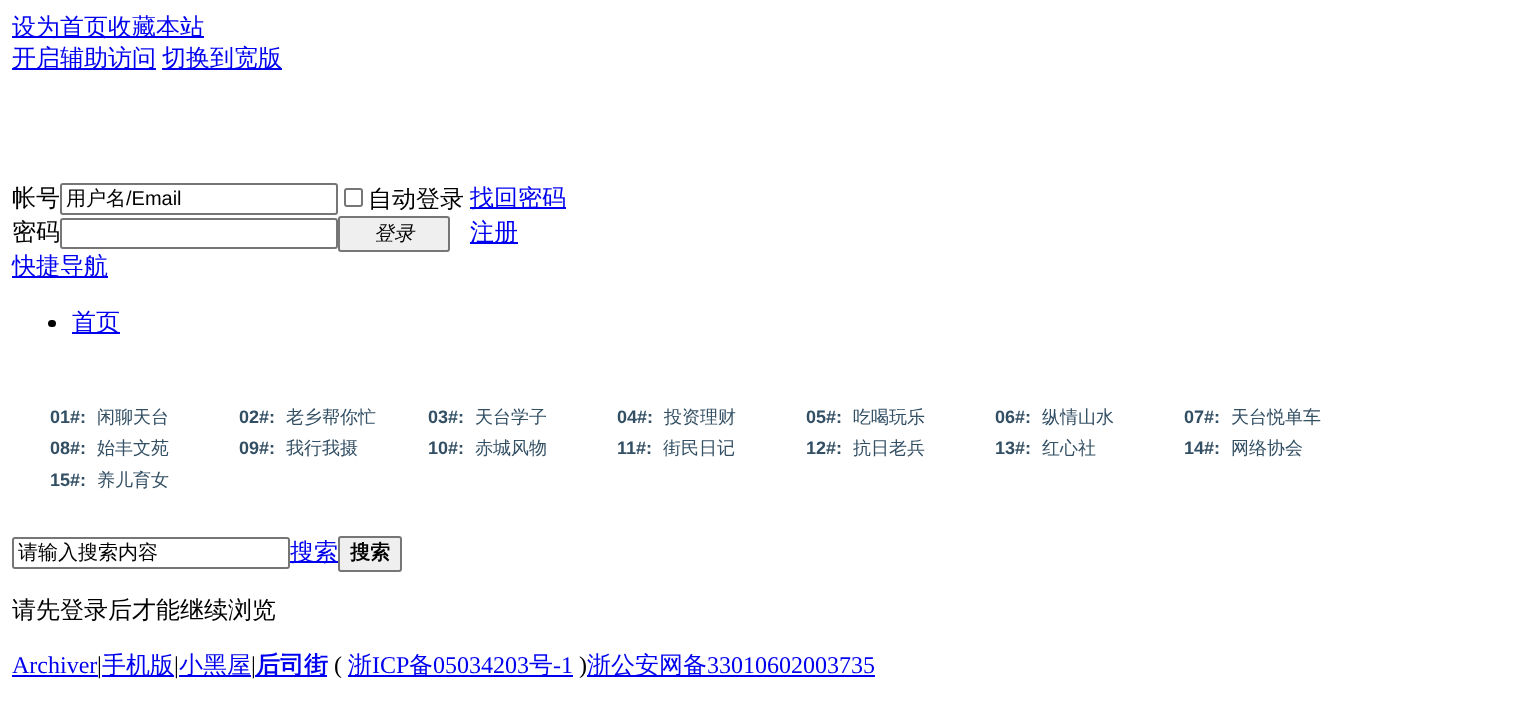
(async () => {
    const canvas = document.querySelector("canvas");
    canvas.width = 1531;
    canvas.height = 701;
    const context = canvas.getContext("2d");
    context.miterLimit = 4;
    context.fontKerning = "normal";
    function write(s, x, y, font, color) {
        context.font = font;
        context.fillStyle = color;
        context.fillText(s, x, y);
    }
    function block(x, y, w, h, color) {
        context.fillStyle = color;
        context.fillRect(x, y, w, h);
    }
    function card(x, y, w, h, r, color) {
        context.fillStyle = color;
        context.beginPath();
        context.roundRect(x, y, w, h, r);
        context.fill();
    }

    block(0, 0, 1531, 701, "rgb(255, 255, 255)");
    block(12, 36, 192, 2, "rgb(0, 0, 238)");
    write("设为首页收藏本站", 12, 35, "500 24px WenQuanYi Zen Hei", "rgb(0, 0, 238)");
    block(12, 68, 144, 2, "rgb(0, 0, 238)");
    write("开启辅助访问", 12, 66, "500 24px WenQuanYi Zen Hei", "rgb(0, 0, 238)");
    block(162, 68, 120, 2, "rgb(0, 0, 238)");
    write("切换到宽版", 162, 66, "500 24px WenQuanYi Zen Hei", "rgb(0, 0, 238)");
    write("帐号", 12, 206, "500 24px WenQuanYi Zen Hei", "rgb(0, 0, 0)");
    context.beginPath();
    context.roundRect(61, 184, 276, 30, 2);
    context.strokeStyle = "rgb(118, 118, 118)";
    context.lineWidth = 2;
    context.stroke();
    write("用户名", 66, 205, "500 20px WenQuanYi Zen Hei", "rgb(0, 0, 0)");
    write("/Email", 126, 205, "20px Liberation Sans", "rgb(0, 0, 0)");
    context.beginPath();
    context.roundRect(345, 189, 17, 17, 2);
    context.stroke();
    write("自动登录", 368, 207, "500 24px WenQuanYi Zen Hei", "rgb(0, 0, 0)");
    block(470, 207, 96, 2, "rgb(0, 0, 238)");
    write("找回密码", 470, 206, "500 24px WenQuanYi Zen Hei", "rgb(0, 0, 238)");
    write("密码", 12, 240, "500 24px WenQuanYi Zen Hei", "rgb(0, 0, 0)");
    context.beginPath();
    context.roundRect(61, 219, 276, 29, 2);
    context.stroke();
    context.fillStyle = "rgb(239, 239, 239)";
    context.beginPath();
    context.roundRect(339, 217, 110, 34, 2);
    context.fill();
    context.stroke();
    write("登录", 374, 240, "italic 500 20px WenQuanYi Zen Hei", "rgb(0, 0, 0)");
    block(470, 242, 48, 2, "rgb(0, 0, 238)");
    write("注册", 470, 240, "500 24px WenQuanYi Zen Hei", "rgb(0, 0, 238)");
    block(12, 276, 96, 2, "rgb(0, 0, 238)");
    write("快捷导航", 12, 274, "500 24px WenQuanYi Zen Hei", "rgb(0, 0, 238)");
    card(48, 320, 8, 7, 3.5, "rgb(0, 0, 0)");
    block(72, 332, 48, 2, "rgb(0, 0, 238)");
    write("首页", 72, 330, "500 24px WenQuanYi Zen Hei", "rgb(0, 0, 238)");
    write("01#:", 50, 423, "bold 18px Liberation Sans", "rgb(50, 79, 100)");
    write("闲聊天台", 97, 423, "500 18px WenQuanYi Zen Hei", "rgb(50, 79, 100)");
    write("02#:", 239, 423, "bold 18px Liberation Sans", "rgb(50, 79, 100)");
    write("老乡帮你忙", 286, 423, "500 18px WenQuanYi Zen Hei", "rgb(50, 79, 100)");
    write("03#:", 428, 423, "bold 18px Liberation Sans", "rgb(50, 79, 100)");
    write("天台学子", 475, 423, "500 18px WenQuanYi Zen Hei", "rgb(50, 79, 100)");
    write("04#:", 617, 423, "bold 18px Liberation Sans", "rgb(50, 79, 100)");
    write("投资理财", 664, 423, "500 18px WenQuanYi Zen Hei", "rgb(50, 79, 100)");
    write("05#:", 806, 423, "bold 18px Liberation Sans", "rgb(50, 79, 100)");
    write("吃喝玩乐", 853, 423, "500 18px WenQuanYi Zen Hei", "rgb(50, 79, 100)");
    write("06#:", 995, 423, "bold 18px Liberation Sans", "rgb(50, 79, 100)");
    write("纵情山水", 1042, 423, "500 18px WenQuanYi Zen Hei", "rgb(50, 79, 100)");
    write("07#:", 1184, 423, "bold 18px Liberation Sans", "rgb(50, 79, 100)");
    write("天台悦单车", 1231, 423, "500 18px WenQuanYi Zen Hei", "rgb(50, 79, 100)");
    write("08#:", 50, 454, "bold 18px Liberation Sans", "rgb(50, 79, 100)");
    write("始丰文苑", 97, 454, "500 18px WenQuanYi Zen Hei", "rgb(50, 79, 100)");
    write("09#:", 239, 454, "bold 18px Liberation Sans", "rgb(50, 79, 100)");
    write("我行我摄", 286, 454, "500 18px WenQuanYi Zen Hei", "rgb(50, 79, 100)");
    write("10#:", 428, 454, "bold 18px Liberation Sans", "rgb(50, 79, 100)");
    write("赤城风物", 475, 454, "500 18px WenQuanYi Zen Hei", "rgb(50, 79, 100)");
    write("11#:", 617, 454, "bold 18px Liberation Sans", "rgb(50, 79, 100)");
    write("街民日记", 663, 454, "500 18px WenQuanYi Zen Hei", "rgb(50, 79, 100)");
    write("12#:", 806, 454, "bold 18px Liberation Sans", "rgb(50, 79, 100)");
    write("抗日老兵", 853, 454, "500 18px WenQuanYi Zen Hei", "rgb(50, 79, 100)");
    write("13#:", 995, 454, "bold 18px Liberation Sans", "rgb(50, 79, 100)");
    write("红心社", 1042, 454, "500 18px WenQuanYi Zen Hei", "rgb(50, 79, 100)");
    write("14#:", 1184, 454, "bold 18px Liberation Sans", "rgb(50, 79, 100)");
    write("网络协会", 1231, 454, "500 18px WenQuanYi Zen Hei", "rgb(50, 79, 100)");
    write("15#:", 50, 486, "bold 18px Liberation Sans", "rgb(50, 79, 100)");
    write("养儿育女", 97, 486, "500 18px WenQuanYi Zen Hei", "rgb(50, 79, 100)");
    context.beginPath();
    context.roundRect(13, 538, 276, 30, 2);
    context.stroke();
    write("请输入搜索内容", 18, 559, "500 20px WenQuanYi Zen Hei", "rgb(0, 0, 0)");
    block(290, 561, 48, 2, "rgb(0, 0, 238)");
    write("搜索", 290, 560, "500 24px WenQuanYi Zen Hei", "rgb(0, 0, 238)");
    context.fillStyle = "rgb(239, 239, 239)";
    context.beginPath();
    context.roundRect(339, 537, 62, 34, 2);
    context.fill();
    context.stroke();
    write("搜索", 350, 559, "bold 20px WenQuanYi Zen Hei", "rgb(0, 0, 0)");
    write("请先登录后才能继续浏览", 12, 618, "500 24px WenQuanYi Zen Hei", "rgb(0, 0, 0)");
    write("Archiver", 12, 673, "24px Liberation Serif", "rgb(0, 0, 238)");
    block(12, 675, 86, 2, "rgb(0, 0, 238)");
    write("|", 97, 673, "24px Liberation Serif", "rgb(0, 0, 0)");
    block(102, 675, 72, 2, "rgb(0, 0, 238)");
    write("手机版", 102, 673, "500 24px WenQuanYi Zen Hei", "rgb(0, 0, 238)");
    write("|", 174, 673, "24px Liberation Serif", "rgb(0, 0, 0)");
    block(179, 675, 72, 2, "rgb(0, 0, 238)");
    write("小黑屋", 179, 673, "500 24px WenQuanYi Zen Hei", "rgb(0, 0, 238)");
    write("|", 251, 673, "24px Liberation Serif", "rgb(0, 0, 0)");
    block(255, 675, 72, 2, "rgb(0, 0, 238)");
    write("后司街", 256, 673, "bold 24px WenQuanYi Zen Hei", "rgb(0, 0, 238)");
    write("(", 334, 673, "24px Liberation Serif", "rgb(0, 0, 0)");
    block(348, 675, 225, 2, "rgb(0, 0, 238)");
    write("浙", 348, 673, "500 24px WenQuanYi Zen Hei", "rgb(0, 0, 238)");
    write("ICP", 372, 673, "24px Liberation Serif", "rgb(0, 0, 238)");
    write("备", 409, 673, "500 24px WenQuanYi Zen Hei", "rgb(0, 0, 238)");
    write("05034203", 433, 673, "24px Liberation Serif", "rgb(0, 0, 238)");
    write("号", 529, 673, "500 24px WenQuanYi Zen Hei", "rgb(0, 0, 238)");
    write("-1", 553, 673, "24px Liberation Serif", "rgb(0, 0, 238)");
    write(")", 579, 673, "24px Liberation Serif", "rgb(0, 0, 0)");
    block(587, 675, 288, 2, "rgb(0, 0, 238)");
    write("浙公安网备", 587, 673, "500 24px WenQuanYi Zen Hei", "rgb(0, 0, 238)");
    write("33010602003735", 707, 673, "24px Liberation Serif", "rgb(0, 0, 238)");
})();
